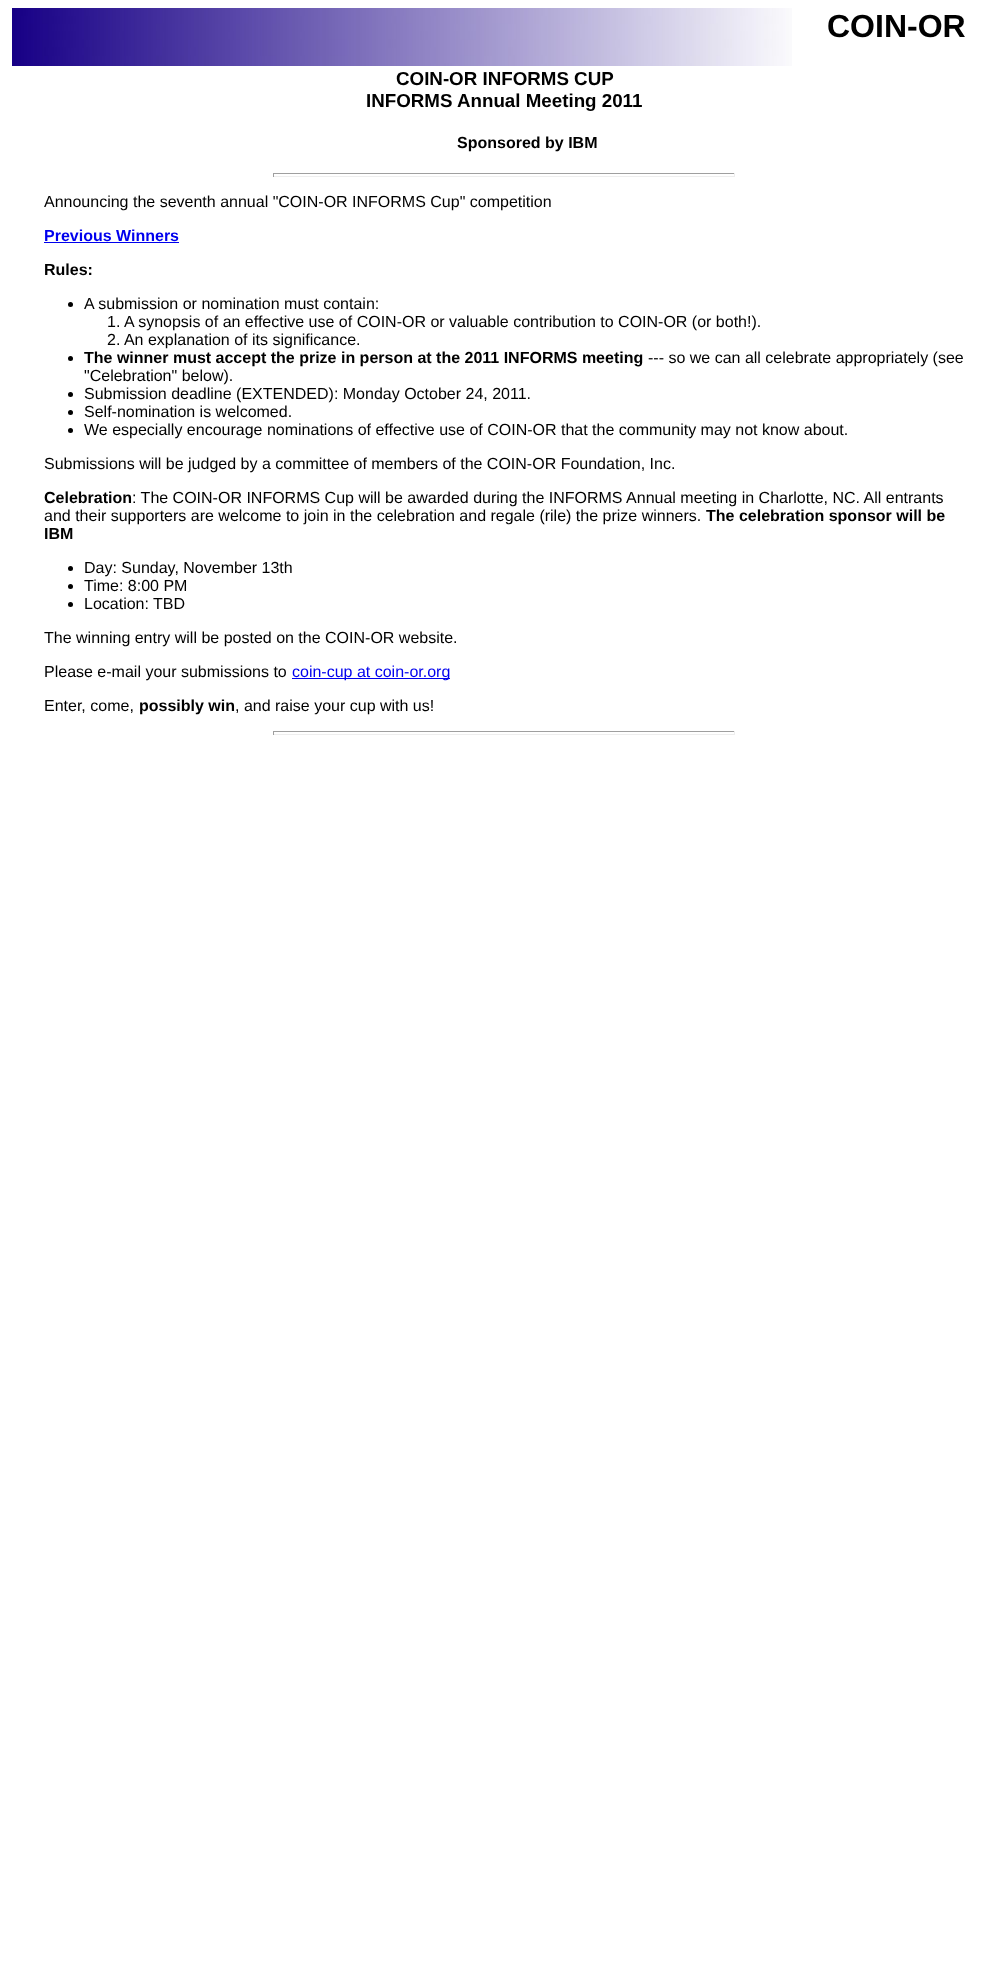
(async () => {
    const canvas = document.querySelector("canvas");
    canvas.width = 1004;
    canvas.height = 1970;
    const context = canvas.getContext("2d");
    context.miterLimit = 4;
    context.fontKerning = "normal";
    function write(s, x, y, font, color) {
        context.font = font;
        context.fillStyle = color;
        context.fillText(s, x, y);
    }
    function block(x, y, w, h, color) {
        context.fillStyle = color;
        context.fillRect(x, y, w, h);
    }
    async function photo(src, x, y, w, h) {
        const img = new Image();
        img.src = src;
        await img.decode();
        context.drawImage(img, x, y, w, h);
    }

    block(0, 0, 1004, 1970, "rgb(255, 255, 255)");
    await photo("media/1.png", 12, 8, 780, 58);
    write("COIN-OR", 827, 37, "bold 32px Liberation Sans", "rgb(0, 0, 0)");
    write("COIN-OR INFORMS CUP", 396, 85, "bold 18.75px Liberation Sans", "rgb(0, 0, 0)");
    write("INFORMS Annual Meeting 2011", 366, 107, "bold 18.75px Liberation Sans", "rgb(0, 0, 0)");
    write("Sponsored by IBM", 457, 148, "bold 16px Liberation Sans", "rgb(0, 0, 0)");
    block(273, 173, 462, 1, "rgb(159, 159, 159)");
    block(734, 173, 1, 4, "rgb(238, 238, 238)");
    block(273, 176, 462, 1, "rgb(238, 238, 238)");
    block(273, 173, 1, 4, "rgb(159, 159, 159)");
    write("Announcing the seventh annual \"COIN-OR INFORMS Cup\" competition", 44, 207, "16px Liberation Sans", "rgb(0, 0, 0)");
    write("Previous Winners", 44, 241, "bold 16px Liberation Sans", "rgb(0, 0, 238)");
    block(44, 242, 135, 1, "rgb(0, 0, 238)");
    write("Rules:", 44, 275, "bold 16px Liberation Sans", "rgb(0, 0, 0)");
    context.beginPath();
    context.arc(70.5, 304.5, 2.5, 0, Math.PI * 2);
    context.fill();
    write("A submission or nomination must contain:", 84, 309, "16px Liberation Sans", "rgb(0, 0, 0)");
    write("1. A synopsis of an effective use of COIN-OR or valuable contribution to COIN-OR (or both!).", 107, 327, "16px Liberation Sans", "rgb(0, 0, 0)");
    write("2. An explanation of its significance.", 107, 345, "16px Liberation Sans", "rgb(0, 0, 0)");
    context.beginPath();
    context.arc(70.5, 358.5, 2.5, 0, Math.PI * 2);
    context.fill();
    write("The winner must accept the prize in person at the 2011 INFORMS meeting", 84, 363, "bold 16px Liberation Sans", "rgb(0, 0, 0)");
    write("--- so we can all celebrate appropriately (see", 648, 363, "16px Liberation Sans", "rgb(0, 0, 0)");
    write("\"Celebration\" below).", 84, 381, "16px Liberation Sans", "rgb(0, 0, 0)");
    context.beginPath();
    context.arc(70.5, 394.5, 2.5, 0, Math.PI * 2);
    context.fill();
    write("Submission deadline (EXTENDED): Monday October 24, 2011.", 84, 399, "16px Liberation Sans", "rgb(0, 0, 0)");
    context.beginPath();
    context.arc(70.5, 412.5, 2.5, 0, Math.PI * 2);
    context.fill();
    write("Self-nomination is welcomed.", 84, 417, "16px Liberation Sans", "rgb(0, 0, 0)");
    context.beginPath();
    context.arc(70.5, 430.5, 2.5, 0, Math.PI * 2);
    context.fill();
    write("We especially encourage nominations of effective use of COIN-OR that the community may not know about.", 84, 435, "16px Liberation Sans", "rgb(0, 0, 0)");
    write("Submissions will be judged by a committee of members of the COIN-OR Foundation, Inc.", 44, 469, "16px Liberation Sans", "rgb(0, 0, 0)");
    write("Celebration", 44, 503, "bold 16px Liberation Sans", "rgb(0, 0, 0)");
    write(": The COIN-OR INFORMS Cup will be awarded during the INFORMS Annual meeting in Charlotte, NC. All entrants", 132, 503, "16px Liberation Sans", "rgb(0, 0, 0)");
    write("and their supporters are welcome to join in the celebration and regale (rile) the prize winners.", 44, 521, "16px Liberation Sans", "rgb(0, 0, 0)");
    write("The celebration sponsor will be", 706, 521, "bold 16px Liberation Sans", "rgb(0, 0, 0)");
    write("IBM", 44, 539, "bold 16px Liberation Sans", "rgb(0, 0, 0)");
    context.beginPath();
    context.arc(70.5, 568.5, 2.5, 0, Math.PI * 2);
    context.fill();
    write("Day: Sunday, November 13th", 84, 573, "16px Liberation Sans", "rgb(0, 0, 0)");
    context.beginPath();
    context.arc(70.5, 586.5, 2.5, 0, Math.PI * 2);
    context.fill();
    write("Time: 8:00 PM", 84, 591, "16px Liberation Sans", "rgb(0, 0, 0)");
    context.beginPath();
    context.arc(70.5, 604.5, 2.5, 0, Math.PI * 2);
    context.fill();
    write("Location: TBD", 84, 609, "16px Liberation Sans", "rgb(0, 0, 0)");
    write("The winning entry will be posted on the COIN-OR website.", 44, 643, "16px Liberation Sans", "rgb(0, 0, 0)");
    write("Please e-mail your submissions to", 44, 677, "16px Liberation Sans", "rgb(0, 0, 0)");
    block(292, 678, 158, 1, "rgb(0, 0, 238)");
    write("coin-cup at coin-or.org", 292, 677, "16px Liberation Sans", "rgb(0, 0, 238)");
    write("Enter, come,", 44, 711, "16px Liberation Sans", "rgb(0, 0, 0)");
    write("possibly win", 139, 711, "bold 16px Liberation Sans", "rgb(0, 0, 0)");
    write(", and raise your cup with us!", 235, 711, "16px Liberation Sans", "rgb(0, 0, 0)");
    block(273, 731, 462, 1, "rgb(159, 159, 159)");
    block(734, 731, 1, 4, "rgb(238, 238, 238)");
    block(273, 734, 462, 1, "rgb(238, 238, 238)");
    block(273, 731, 1, 4, "rgb(159, 159, 159)");
})();
